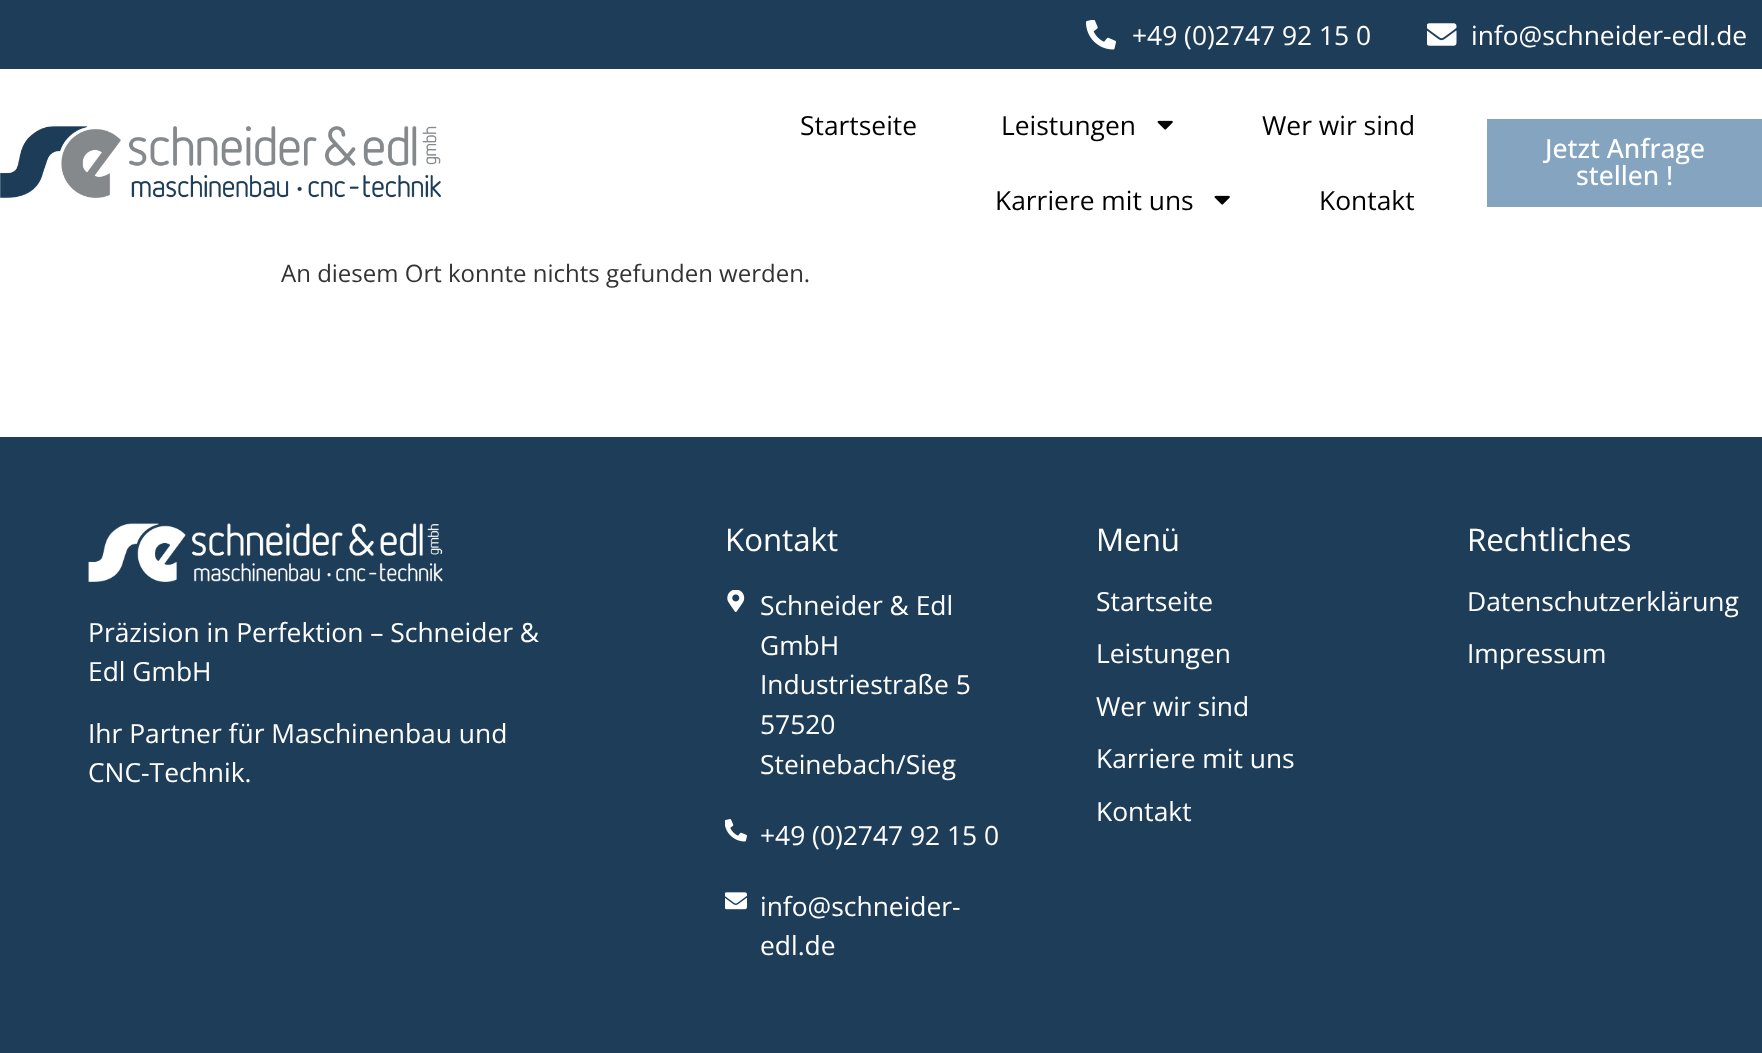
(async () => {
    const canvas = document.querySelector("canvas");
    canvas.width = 1762;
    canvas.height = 1053;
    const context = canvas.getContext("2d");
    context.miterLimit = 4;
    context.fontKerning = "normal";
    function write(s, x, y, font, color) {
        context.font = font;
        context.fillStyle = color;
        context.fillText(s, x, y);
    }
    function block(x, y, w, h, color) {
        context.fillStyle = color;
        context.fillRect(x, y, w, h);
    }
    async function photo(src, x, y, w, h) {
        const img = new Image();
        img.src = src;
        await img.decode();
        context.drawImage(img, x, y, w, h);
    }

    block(0, 0, 1762, 1053, "rgb(255, 255, 255)");
    block(0, 0, 1762, 69, "rgb(30, 61, 88)");
    await photo("media/1.png", 1086, 20, 30, 30);
    write("+49 (0)2747 92 15 0", 1132, 45, "26.4px Open Sans", "rgb(255, 255, 255)");
    await photo("media/2.png", 1427, 23, 30, 23);
    write("info@schneider-edl.de", 1471, 45, "26.4px Open Sans", "rgb(255, 255, 255)");
    await photo("media/3.png", 0, 126, 441, 72);
    write("Startseite", 800, 135, "26.4px Open Sans", "rgb(0, 0, 0)");
    write("Leistungen", 1001, 135, "26.4px Open Sans", "rgb(0, 0, 0)");
    await photo("media/4.png", 1157, 120, 16, 10);
    write("Wer wir sind", 1262, 135, "26.4px Open Sans", "rgb(0, 0, 0)");
    write("Karriere mit uns", 995, 210, "26.4px Open Sans", "rgb(0, 0, 0)");
    await photo("media/4.png", 1214, 195, 16, 10);
    write("Kontakt", 1319, 210, "26.4px Open Sans", "rgb(0, 0, 0)");
    block(1487, 119, 275, 88, "rgb(132, 164, 192)");
    write("Jetzt Anfrage", 1545, 158, "500 26.4px Open Sans", "rgb(255, 255, 255)");
    write("stellen !", 1576, 185, "500 26.4px Open Sans", "rgb(255, 255, 255)");
    write("An diesem Ort konnte nichts gefunden werden.", 281, 282, "24px Open Sans", "rgb(51, 51, 51)");
    block(0, 437, 1762, 616, "rgb(30, 61, 88)");
    await photo("media/5.png", 88, 523, 355, 59);
    write("Präzision in Perfektion – Schneider &", 88, 642, "26.4px Open Sans", "rgb(255, 255, 255)");
    write("Edl GmbH", 88, 681, "26.4px Open Sans", "rgb(255, 255, 255)");
    write("Ihr Partner für Maschinenbau und", 88, 743, "26.4px Open Sans", "rgb(255, 255, 255)");
    write("CNC-Technik.", 88, 782, "26.4px Open Sans", "rgb(255, 255, 255)");
    write("Kontakt", 725, 551, "31.25px Open Sans", "rgb(255, 255, 255)");
    await photo("media/6.png", 727, 590, 18, 22);
    write("Schneider & Edl", 760, 615, "26.4px Open Sans", "rgb(255, 255, 255)");
    write("GmbH", 760, 655, "26.4px Open Sans", "rgb(255, 255, 255)");
    write("Industriestraße 5", 760, 694, "26.4px Open Sans", "rgb(255, 255, 255)");
    write("57520", 760, 734, "26.4px Open Sans", "rgb(255, 255, 255)");
    write("Steinebach/Sieg", 760, 774, "26.4px Open Sans", "rgb(255, 255, 255)");
    await photo("media/7.png", 725, 819, 22, 23);
    write("+49 (0)2747 92 15 0", 760, 845, "26.4px Open Sans", "rgb(255, 255, 255)");
    await photo("media/8.png", 725, 892, 22, 18);
    write("info@schneider-", 760, 916, "26.4px Open Sans", "rgb(255, 255, 255)");
    write("edl.de", 760, 955, "26.4px Open Sans", "rgb(255, 255, 255)");
    write("Menü", 1096, 551, "31.25px Open Sans", "rgb(255, 255, 255)");
    write("Startseite", 1096, 611, "26.4px Open Sans", "rgb(255, 255, 255)");
    write("Leistungen", 1096, 663, "26.4px Open Sans", "rgb(255, 255, 255)");
    write("Wer wir sind", 1096, 716, "26.4px Open Sans", "rgb(255, 255, 255)");
    write("Karriere mit uns", 1096, 768, "26.4px Open Sans", "rgb(255, 255, 255)");
    write("Kontakt", 1096, 821, "26.4px Open Sans", "rgb(255, 255, 255)");
    write("Rechtliches", 1467, 551, "31.25px Open Sans", "rgb(255, 255, 255)");
    write("Datenschutzerklärung", 1467, 611, "26.4px Open Sans", "rgb(255, 255, 255)");
    write("Impressum", 1467, 663, "26.4px Open Sans", "rgb(255, 255, 255)");
})();
